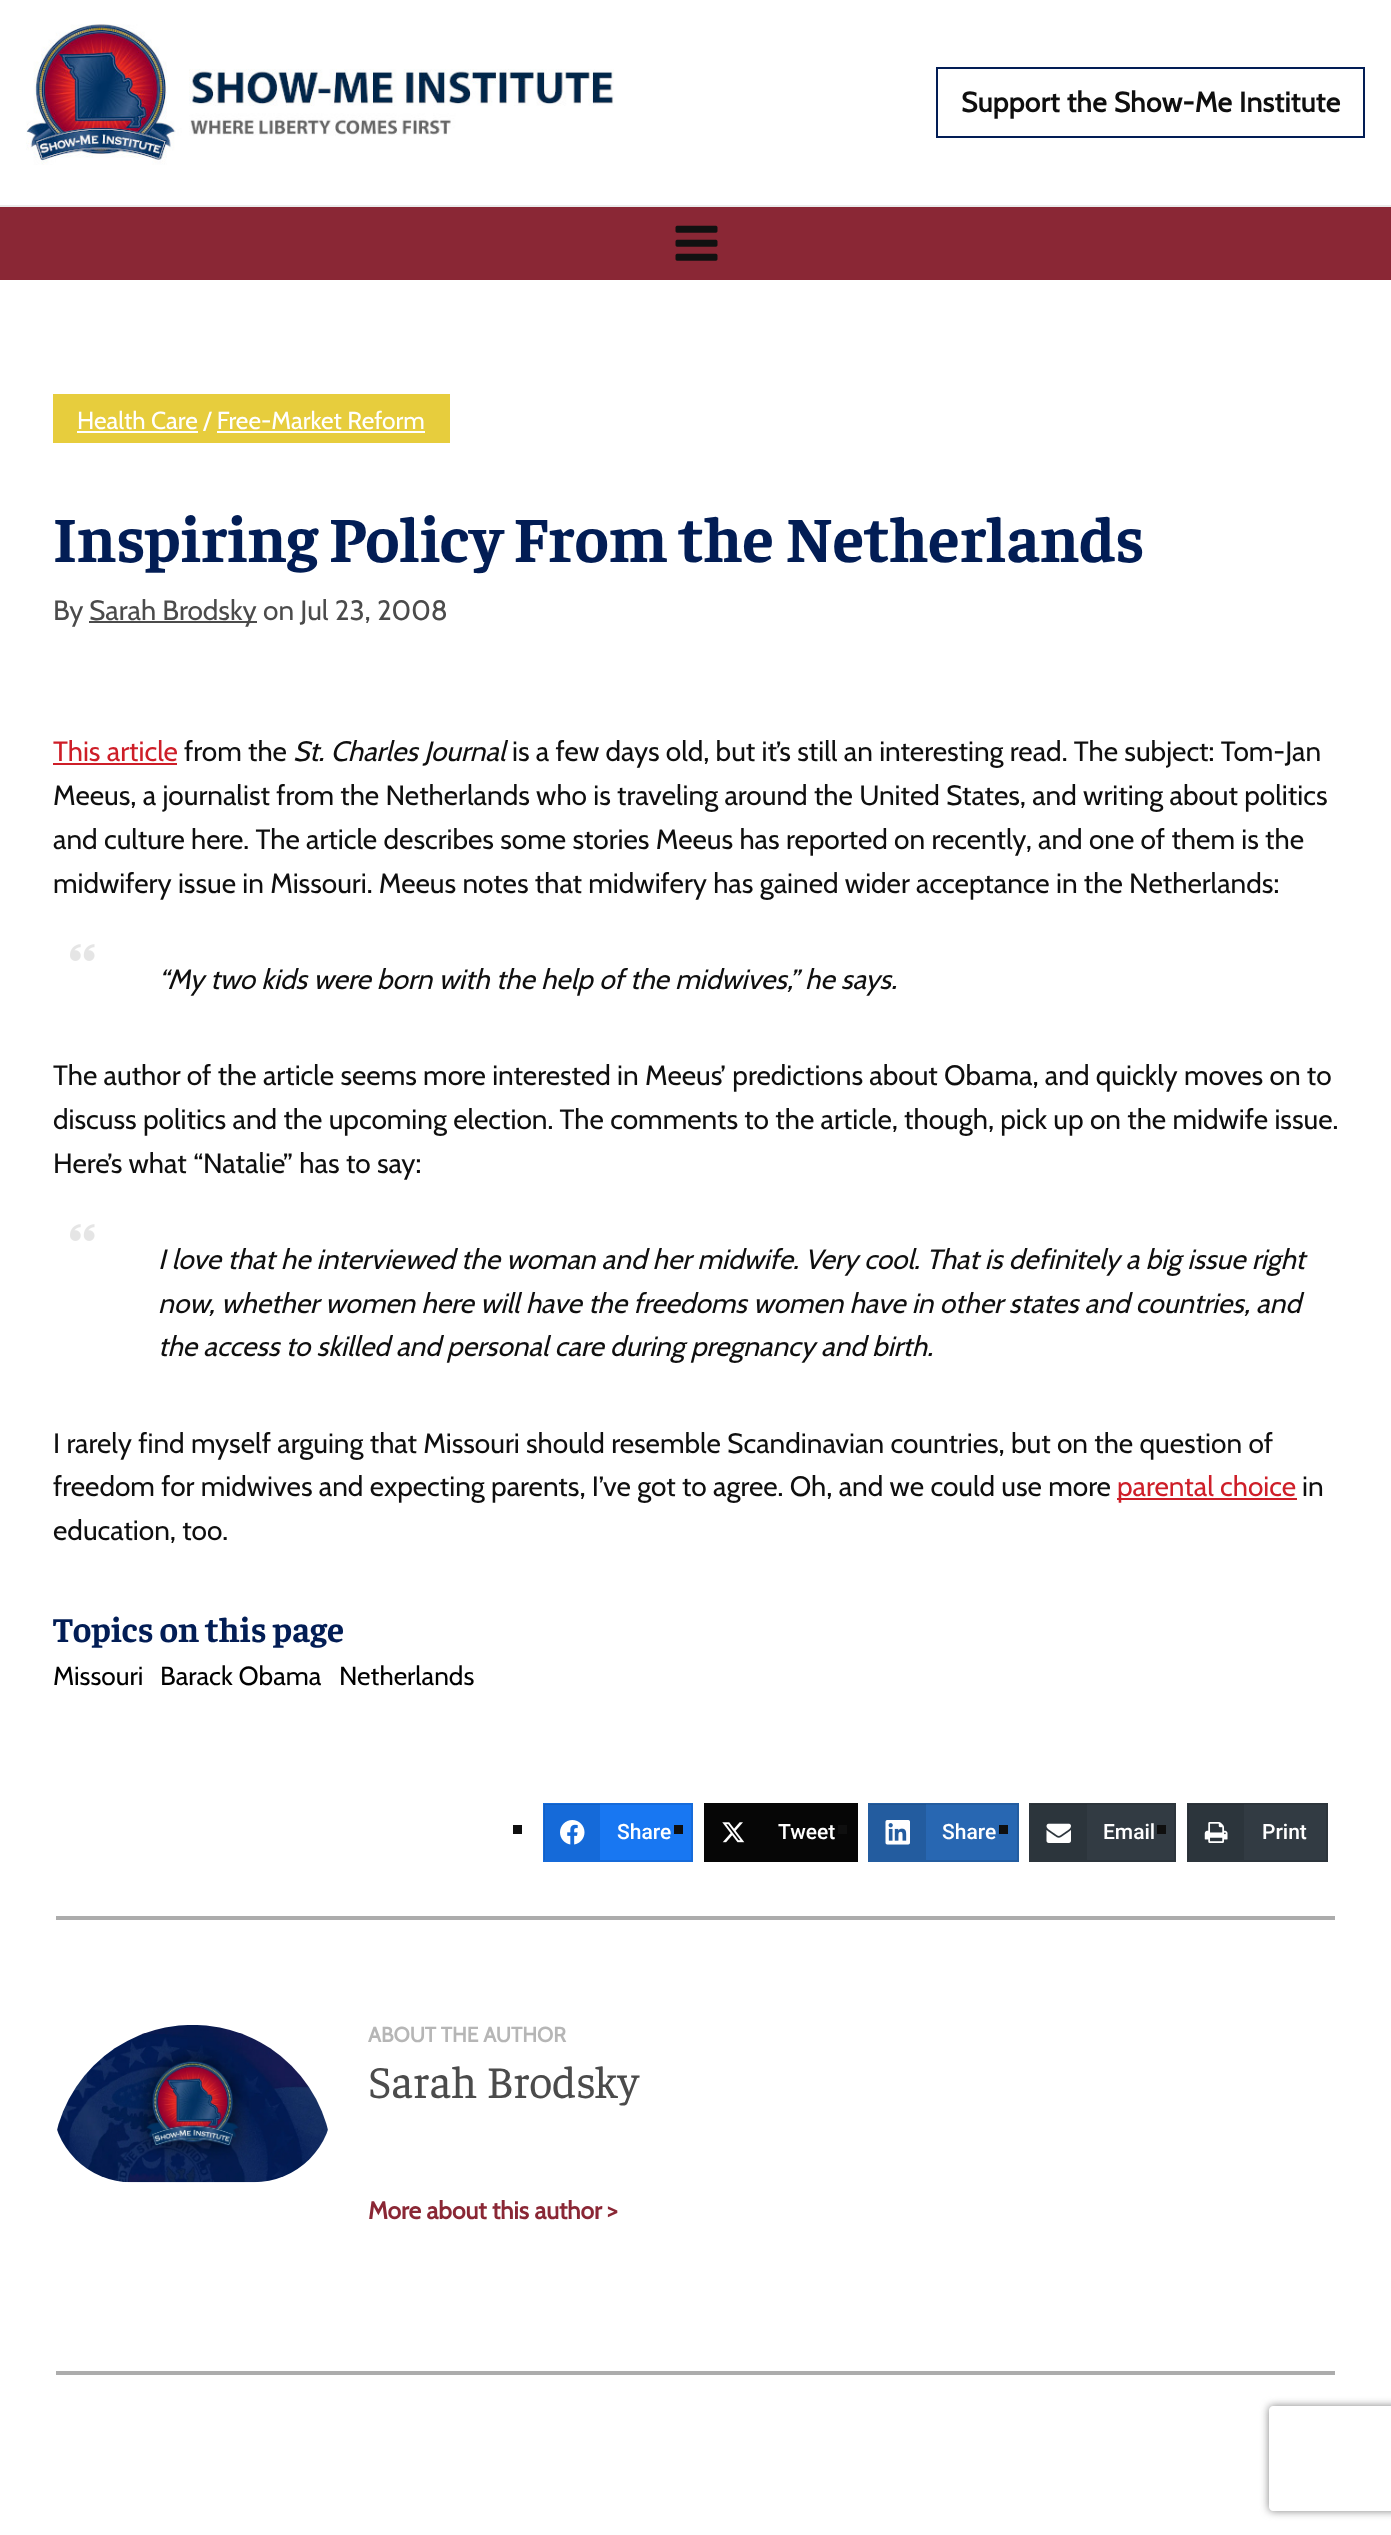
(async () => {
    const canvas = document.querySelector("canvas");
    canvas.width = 1391;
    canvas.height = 2535;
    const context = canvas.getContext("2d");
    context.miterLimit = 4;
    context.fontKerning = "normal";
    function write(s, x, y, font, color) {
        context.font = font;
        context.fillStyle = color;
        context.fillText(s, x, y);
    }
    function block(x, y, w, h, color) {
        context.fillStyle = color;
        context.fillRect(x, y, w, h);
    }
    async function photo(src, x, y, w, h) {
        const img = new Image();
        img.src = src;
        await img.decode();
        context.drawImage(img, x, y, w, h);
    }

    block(0, 0, 1391, 2535, "rgb(255, 255, 255)");
    await photo("media/1.png", 26, 24, 588, 141);
    context.strokeStyle = "rgb(2, 29, 85)";
    context.lineWidth = 2;
    context.strokeRect(937, 68, 427, 69);
    context.letterSpacing = "0.45px";
    write("Support the Show-Me Institute", 961, 112, "bold 28px Cabin", "rgb(15, 15, 15)");
    block(0, 205, 1391, 2, "rgb(235, 235, 235)");
    block(0, 207, 1391, 73, "rgb(138, 39, 53)");
    await photo("media/2.png", 675, 225, 43, 36);
    block(53, 394, 397, 49, "rgb(231, 205, 61)");
    block(77, 431, 121, 2, "rgb(255, 255, 255)");
    context.letterSpacing = "0px";
    write("Health Care / Free-Market Reform", 77, 429, "24.5px Cabin", "rgb(255, 255, 255)");
    block(217, 431, 208, 2, "rgb(255, 255, 255)");
    write("Inspiring Policy From the Netherlands", 53, 562, "bold 64.75px Faustina", "rgb(2, 29, 85)");
    write("By", 53, 620, "28px Cabin", "rgb(75, 75, 75)");
    block(89, 621, 168, 2, "rgb(75, 75, 75)");
    write("Sarah Brodsky", 89, 620, "28px Cabin", "rgb(75, 75, 75)");
    write("on Jul 23, 2008", 263, 620, "28px Cabin", "rgb(75, 75, 75)");
    write("This article", 53, 761, "28px Cabin", "rgb(206, 30, 40)");
    block(53, 763, 124, 2, "rgb(206, 30, 40)");
    write("from the", 184, 761, "28px Cabin", "rgb(15, 15, 15)");
    write("St. Charles Journal", 293, 761, "italic 28px Cabin", "rgb(15, 15, 15)");
    write("is a few days old, but it’s still an interesting read. The subject: Tom-Jan", 512, 761, "28px Cabin", "rgb(15, 15, 15)");
    write("Meeus, a journalist from the Netherlands who is traveling around the United States, and writing about politics", 53, 805, "28px Cabin", "rgb(15, 15, 15)");
    write("and culture here. The article describes some stories Meeus has reported on recently, and one of them is the", 53, 849, "28px Cabin", "rgb(15, 15, 15)");
    write("midwifery issue in Missouri. Meeus notes that midwifery has gained wider acceptance in the Netherlands:", 53, 893, "28px Cabin", "rgb(15, 15, 15)");
    await photo("media/3.png", 70, 944, 25, 17);
    write("“My two kids were born with the help of the midwives,” he says.", 158, 989, "italic 28px Cabin", "rgb(15, 15, 15)");
    write("The author of the article seems more interested in Meeus’ predictions about Obama, and quickly moves on to", 53, 1085, "28px Cabin", "rgb(15, 15, 15)");
    write("discuss politics and the upcoming election. The comments to the article, though, pick up on the midwife issue.", 53, 1129, "28px Cabin", "rgb(15, 15, 15)");
    write("Here’s what “Natalie” has to say:", 53, 1173, "28px Cabin", "rgb(15, 15, 15)");
    await photo("media/3.png", 70, 1224, 25, 17);
    write("I love that he interviewed the woman and her midwife. Very cool. That is definitely a big issue right", 158, 1269, "italic 28px Cabin", "rgb(15, 15, 15)");
    write("now, whether women here will have the freedoms women have in other states and countries, and", 158, 1313, "italic 28px Cabin", "rgb(15, 15, 15)");
    write("the access to skilled and personal care during pregnancy and birth.", 158, 1356, "italic 28px Cabin", "rgb(15, 15, 15)");
    write("I rarely find myself arguing that Missouri should resemble Scandinavian countries, but on the question of", 53, 1453, "28px Cabin", "rgb(15, 15, 15)");
    write("freedom for midwives and expecting parents, I’ve got to agree. Oh, and we could use more", 53, 1496, "28px Cabin", "rgb(15, 15, 15)");
    block(1117, 1498, 180, 2, "rgb(206, 30, 40)");
    write("parental choice", 1117, 1496, "28px Cabin", "rgb(206, 30, 40)");
    write("in", 1302, 1496, "28px Cabin", "rgb(15, 15, 15)");
    write("education, too.", 53, 1540, "28px Cabin", "rgb(15, 15, 15)");
    write("Topics on this page", 53, 1642, "bold 35px Faustina", "rgb(2, 29, 85)");
    write("Missouri", 53, 1685, "26.25px Cabin", "rgb(0, 0, 0)");
    write("Barack Obama", 160, 1685, "26.25px Cabin", "rgb(0, 0, 0)");
    write("Netherlands", 339, 1685, "26.25px Cabin", "rgb(0, 0, 0)");
    block(513, 1825, 9, 9, "rgb(15, 15, 15)");
    context.fillStyle = "rgb(24, 119, 242)";
    context.beginPath();
    context.rect(544, 1804, 148, 57);
    context.fill();
    context.strokeStyle = "rgb(22, 107, 218)";
    context.stroke();
    block(544, 1804, 56, 56, "rgba(0, 0, 0, 0.1)");
    await photo("media/4.png", 560, 1820, 25, 25);
    write("Share", 617, 1839, "500 21px Roboto", "rgb(255, 255, 255)");
    block(674, 1825, 9, 9, "rgb(15, 15, 15)");
    block(704, 1803, 154, 59, "rgb(6, 6, 6)");
    await photo("media/5.png", 722, 1822, 23, 21);
    write("Tweet", 778, 1839, "500 21px Roboto", "rgb(255, 255, 255)");
    block(838, 1825, 9, 9, "rgb(15, 15, 15)");
    context.fillStyle = "rgb(40, 103, 178)";
    context.beginPath();
    context.rect(869, 1804, 149, 57);
    context.fill();
    context.strokeStyle = "rgb(36, 93, 160)";
    context.stroke();
    block(870, 1804, 56, 56, "rgba(0, 0, 0, 0.1)");
    await photo("media/6.png", 885, 1820, 25, 25);
    write("Share", 942, 1839, "500 21px Roboto", "rgb(255, 255, 255)");
    block(999, 1825, 9, 9, "rgb(15, 15, 15)");
    context.fillStyle = "rgb(50, 59, 67)";
    context.beginPath();
    context.rect(1030, 1804, 145, 57);
    context.fill();
    context.strokeStyle = "rgb(45, 53, 60)";
    context.stroke();
    block(1031, 1804, 56, 56, "rgba(0, 0, 0, 0.1)");
    await photo("media/7.png", 1046, 1823, 25, 20);
    write("Email", 1103, 1839, "500 21px Roboto", "rgb(255, 255, 255)");
    block(1157, 1825, 9, 9, "rgb(15, 15, 15)");
    context.fillStyle = "rgb(50, 59, 67)";
    context.beginPath();
    context.rect(1188, 1804, 139, 57);
    context.fill();
    context.stroke();
    block(1188, 1804, 56, 56, "rgba(0, 0, 0, 0.1)");
    await photo("media/8.png", 1204, 1822, 24, 21);
    write("Print", 1262, 1839, "500 21px Roboto", "rgb(255, 255, 255)");
    block(56, 1916, 1279, 4, "rgb(172, 172, 172)");
    block(56, 2371, 1279, 4, "rgb(172, 172, 172)");
    await photo("media/9.png", 57, 2025, 271, 158);
    write("ABOUT THE AUTHOR", 368, 2042, "bold 21px Cabin", "rgb(182, 182, 182)");
    write("Sarah Brodsky", 368, 2098, "45.5px Faustina", "rgb(75, 75, 75)");
    write("More about this author >", 368, 2219, "bold 24.5px Cabin", "rgb(138, 39, 53)");
    context.save();
    context.beginPath();
    context.moveTo(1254, 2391);
    context.lineTo(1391, 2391);
    context.lineTo(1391, 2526);
    context.lineTo(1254, 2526);
    context.closePath();
    context.moveTo(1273, 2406);
    context.lineTo(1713, 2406);
    context.bezierCurveTo(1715, 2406, 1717, 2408, 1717, 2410);
    context.lineTo(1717, 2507);
    context.bezierCurveTo(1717, 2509, 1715, 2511, 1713, 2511);
    context.lineTo(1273, 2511);
    context.bezierCurveTo(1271, 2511, 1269, 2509, 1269, 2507);
    context.lineTo(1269, 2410);
    context.bezierCurveTo(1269, 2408, 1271, 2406, 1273, 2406);
    context.closePath();
    context.clip("evenodd");
    context.fillStyle = "rgb(128, 128, 128)";
    context.filter = "blur(4.5px)";
    context.beginPath();
    context.roundRect(1269, 2406, 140, 105, 4);
    context.fill();
    context.filter = "none";
    context.restore();
})();
